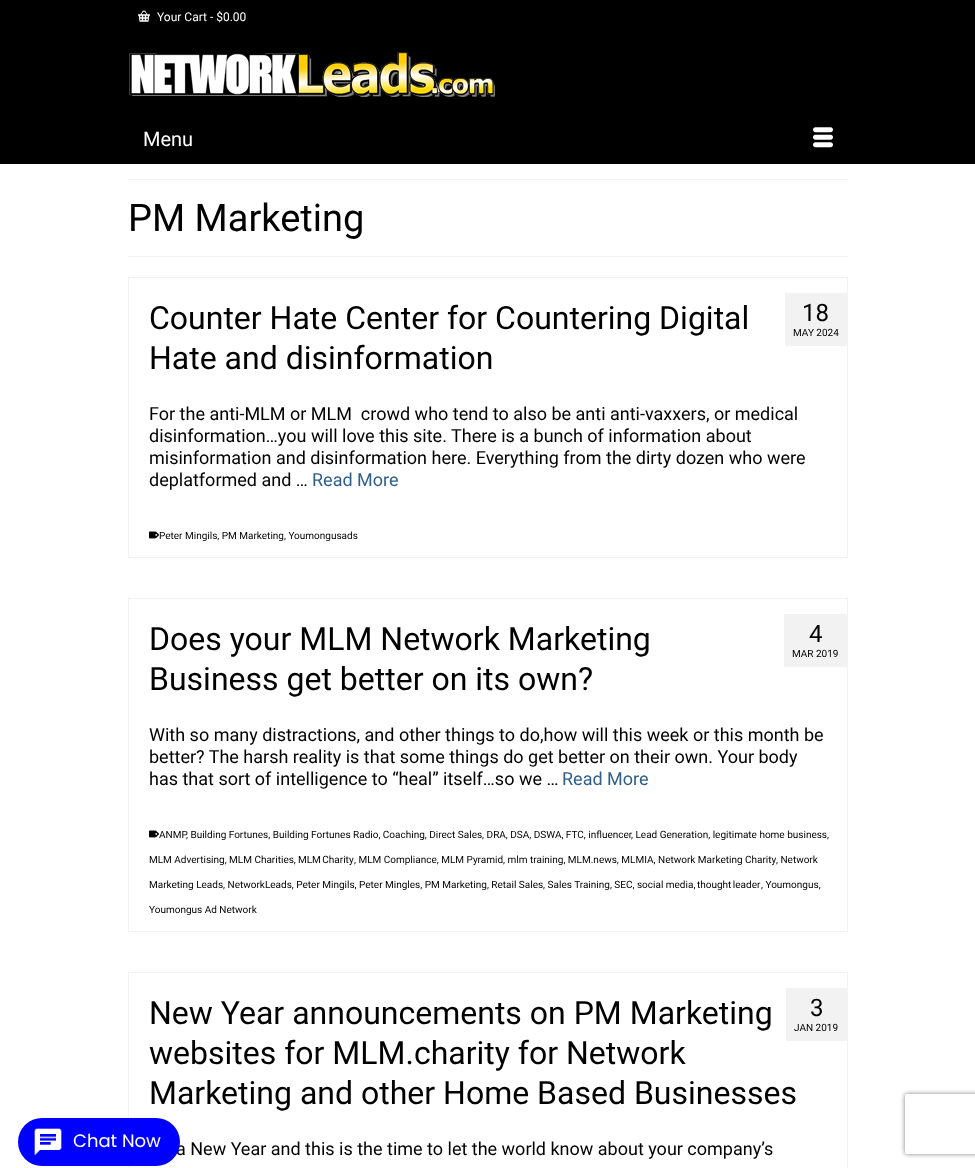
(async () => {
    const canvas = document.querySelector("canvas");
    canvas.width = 975;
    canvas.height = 1168;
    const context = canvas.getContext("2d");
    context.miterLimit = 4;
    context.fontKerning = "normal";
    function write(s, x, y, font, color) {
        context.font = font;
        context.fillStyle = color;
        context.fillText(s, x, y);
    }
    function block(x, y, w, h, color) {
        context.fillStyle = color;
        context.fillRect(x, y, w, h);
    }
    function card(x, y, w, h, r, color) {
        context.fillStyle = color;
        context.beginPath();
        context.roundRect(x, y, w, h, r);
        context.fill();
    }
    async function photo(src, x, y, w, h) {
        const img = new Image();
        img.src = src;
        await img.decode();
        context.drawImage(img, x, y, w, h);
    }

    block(0, 0, 975, 1168, "rgb(255, 255, 255)");
    context.strokeStyle = "rgb(242, 242, 242)";
    context.strokeRect(128.5, 972.5, 719, 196);
    write("a New Year and this is the time to let the world know about your company’s", 176, 1155, "18px Roboto", "rgb(0, 0, 0)");
    card(18, 1118, 162, 48, 24, "rgb(0, 0, 255)");
    await photo("media/1.png", 34, 1128, 28, 28);
    write("Chat Now", 73, 1147, "18px Poppins", "rgb(255, 255, 255)");
    block(0, 0, 975, 164, "rgb(0, 0, 0)");
    await photo("media/2.png", 138, 10, 12, 12);
    write("Your Cart - $0.00", 157, 21, "12px Roboto", "rgb(255, 255, 255)");
    await photo("media/3.png", 129, 52, 366, 45);
    write("Menu", 143, 146, "20px Roboto", "rgb(255, 255, 255)");
    await photo("media/4.png", 813, 127, 20, 21);
    block(128, 179, 720, 1, "rgb(242, 242, 242)");
    block(128, 256, 720, 1, "rgb(242, 242, 242)");
    write("PM Marketing", 128, 231, "38px Roboto", "rgb(0, 0, 0)");
    context.strokeRect(128.5, 277.5, 719, 280);
    write("Counter Hate Center for Countering Digital", 149, 329, "32px Roboto", "rgb(0, 0, 0)");
    write("Hate and disinformation", 149, 369, "32px Roboto", "rgb(0, 0, 0)");
    block(785, 293, 62, 53, "rgb(242, 242, 242)");
    write("18", 802, 321, "24px Roboto", "rgb(0, 0, 0)");
    write("MAY 2024", 793, 336, "10px Roboto", "rgb(0, 0, 0)");
    write("For the anti-MLM or MLM  crowd who tend to also be anti anti-vaxxers, or medical", 149, 420, "18px Roboto", "rgb(0, 0, 0)");
    write("disinformation…you will love this site. There is a bunch of information about", 149, 442, "18px Roboto", "rgb(0, 0, 0)");
    write("misinformation and disinformation here. Everything from the dirty dozen who were", 149, 464, "18px Roboto", "rgb(0, 0, 0)");
    write("deplatformed and …", 149, 486, "18px Roboto", "rgb(0, 0, 0)");
    write("Read More", 312, 486, "18px Roboto", "rgb(47, 94, 137)");
    await photo("media/5.png", 149, 531, 10, 8);
    write("Peter Mingils, PM Marketing, Youmongusads", 159, 539, "10px Roboto", "rgb(0, 0, 0)");
    context.strokeRect(128.5, 598.5, 719, 333);
    write("Does your MLM Network Marketing", 149, 650, "32px Roboto", "rgb(0, 0, 0)");
    write("Business get better on its own?", 149, 690, "32px Roboto", "rgb(0, 0, 0)");
    block(784, 614, 63, 53, "rgb(242, 242, 242)");
    write("4", 809, 642, "24px Roboto", "rgb(0, 0, 0)");
    write("MAR 2019", 792, 657, "10px Roboto", "rgb(0, 0, 0)");
    write("With so many distractions, and other things to do,how will this week or this month be", 149, 741, "18px Roboto", "rgb(0, 0, 0)");
    write("better? The harsh reality is that some things do get better on their own. Your body", 149, 763, "18px Roboto", "rgb(0, 0, 0)");
    write("has that sort of intelligence to “heal” itself…so we …", 149, 785, "18px Roboto", "rgb(0, 0, 0)");
    write("Read More", 562, 785, "18px Roboto", "rgb(47, 94, 137)");
    await photo("media/6.png", 149, 830, 10, 8);
    write("ANMP", 159, 838, "10px Roboto", "rgb(0, 0, 0)");
    write(", Building Fortunes, Building Fortunes Radio, Coaching, Direct Sales, DRA, DSA, DSWA, FTC, influencer", 186, 838, "10px Roboto", "rgb(0, 0, 0)");
    write(", Lead Generation, legitimate home business,", 631, 838, "10px Roboto", "rgb(0, 0, 0)");
    write("MLM Advertising, MLM Charities,", 149, 863, "10px Roboto", "rgb(0, 0, 0)");
    context.wordSpacing = "-1px";
    write("MLM Charity", 298, 863, "10px Roboto", "rgb(0, 0, 0)");
    context.wordSpacing = "0px";
    write(", MLM Compliance, MLM Pyramid, mlm training, MLM.news, MLMIA,", 354, 863, "10px Roboto", "rgb(0, 0, 0)");
    write("Network Marketing Charity", 658, 863, "10px Roboto", "rgb(0, 0, 0)");
    write(", Network", 776, 863, "10px Roboto", "rgb(0, 0, 0)");
    write("Marketing Leads, NetworkLeads, Peter Mingils, Peter Mingles, PM Marketing, Retail Sales, Sales Training, SEC, social media,", 149, 888, "10px Roboto", "rgb(0, 0, 0)");
    context.wordSpacing = "-1px";
    write("thought leader", 697, 888, "10px Roboto", "rgb(0, 0, 0)");
    context.wordSpacing = "0px";
    write(", Youmongus,", 761, 888, "10px Roboto", "rgb(0, 0, 0)");
    write("Youmongus Ad Network", 149, 913, "10px Roboto", "rgb(0, 0, 0)");
    write("New Year announcements on PM Marketing", 149, 1024, "32px Roboto", "rgb(0, 0, 0)");
    write("websites for MLM.charity for Network", 149, 1064, "32px Roboto", "rgb(0, 0, 0)");
    write("Marketing and other Home Based Businesses", 149, 1104, "32px Roboto", "rgb(0, 0, 0)");
    block(786, 988, 61, 53, "rgb(242, 242, 242)");
    write("3", 810, 1016, "24px Roboto", "rgb(0, 0, 0)");
    write("JAN 2019", 794, 1031, "10px Roboto", "rgb(0, 0, 0)");
    context.save();
    context.beginPath();
    context.moveTo(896, 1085);
    context.lineTo(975, 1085);
    context.lineTo(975, 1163);
    context.lineTo(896, 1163);
    context.closePath();
    context.moveTo(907, 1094);
    context.lineTo(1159, 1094);
    context.bezierCurveTo(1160, 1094, 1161, 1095, 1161, 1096);
    context.lineTo(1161, 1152);
    context.bezierCurveTo(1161, 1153, 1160, 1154, 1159, 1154);
    context.lineTo(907, 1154);
    context.bezierCurveTo(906, 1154, 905, 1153, 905, 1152);
    context.lineTo(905, 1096);
    context.bezierCurveTo(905, 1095, 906, 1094, 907, 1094);
    context.closePath();
    context.clip("evenodd");
    context.fillStyle = "rgb(128, 128, 128)";
    context.filter = "blur(2.5px)";
    context.beginPath();
    context.roundRect(905, 1094, 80, 60, 2);
    context.fill();
    context.filter = "none";
    context.restore();
})();
